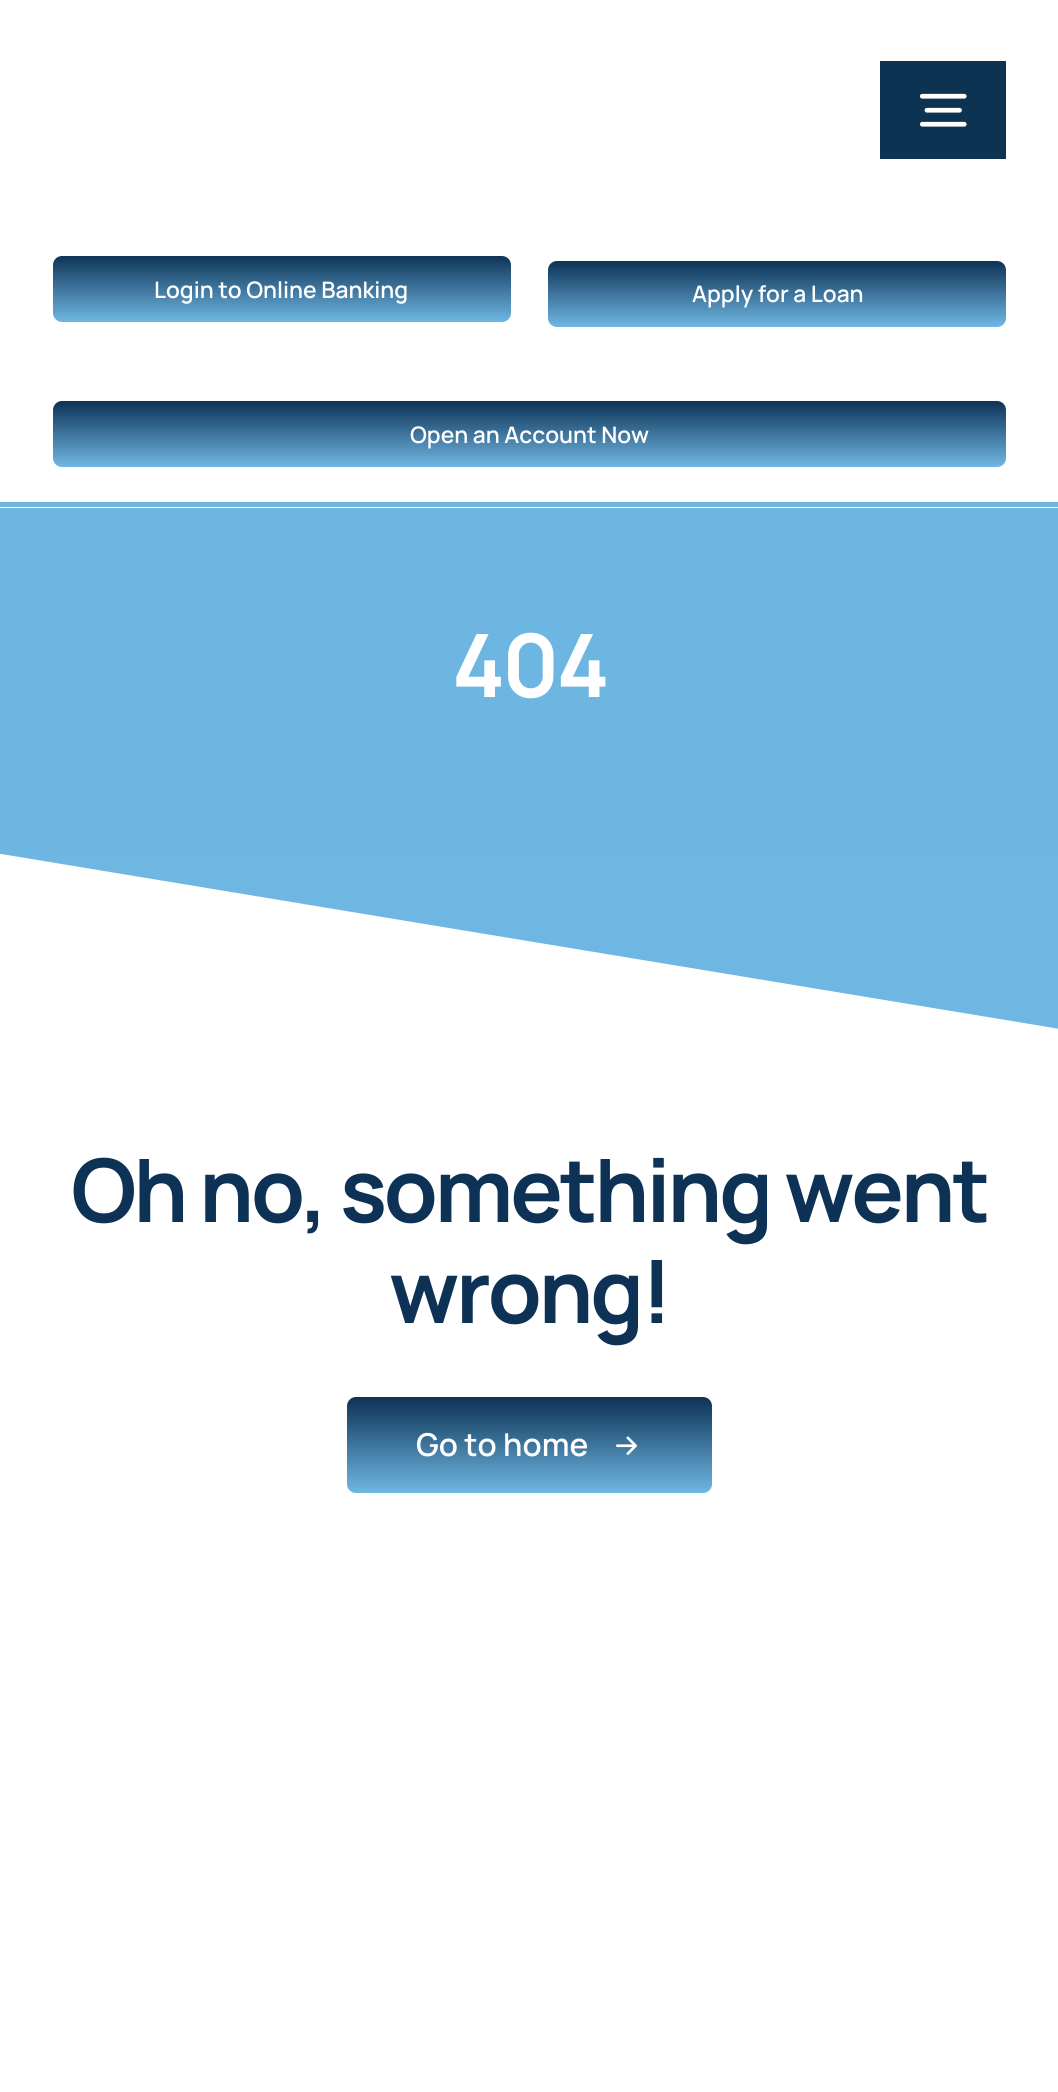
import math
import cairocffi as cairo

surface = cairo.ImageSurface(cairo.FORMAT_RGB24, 1058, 2092)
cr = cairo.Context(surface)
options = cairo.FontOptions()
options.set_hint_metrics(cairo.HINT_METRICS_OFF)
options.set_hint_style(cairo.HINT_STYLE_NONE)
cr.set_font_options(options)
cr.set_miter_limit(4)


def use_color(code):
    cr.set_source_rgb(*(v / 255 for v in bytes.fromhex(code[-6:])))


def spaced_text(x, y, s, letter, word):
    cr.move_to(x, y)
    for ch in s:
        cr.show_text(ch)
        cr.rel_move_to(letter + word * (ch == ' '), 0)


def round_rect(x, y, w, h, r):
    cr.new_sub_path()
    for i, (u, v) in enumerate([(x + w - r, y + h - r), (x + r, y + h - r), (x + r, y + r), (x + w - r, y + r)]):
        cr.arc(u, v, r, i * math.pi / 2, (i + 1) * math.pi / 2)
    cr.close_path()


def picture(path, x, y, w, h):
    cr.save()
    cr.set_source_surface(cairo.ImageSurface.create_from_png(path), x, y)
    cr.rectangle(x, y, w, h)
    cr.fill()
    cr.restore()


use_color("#ffffff")
cr.paint()
use_color("#0d3353")
cr.rectangle(880, 61, 126, 98)
cr.fill()
picture("img1.png", 919, 93, 48, 34)
gradient = cairo.LinearGradient(282, 255, 282, 322)
gradient.add_color_stop_rgba(0, 0.051, 0.196, 0.333, 1)
gradient.add_color_stop_rgba(1, 0.435, 0.718, 0.89, 1)
cr.set_source(gradient)
round_rect(53, 256, 458, 66, 9)
cr.fill()
cr.select_font_face("Manrope SemiBold")
cr.set_font_size(22.75)
use_color("#ffffff")
cr.move_to(154, 298)
cr.show_text("Login to Online Banking")
gradient = cairo.LinearGradient(777, 261, 777, 327)
gradient.add_color_stop_rgba(0, 0.051, 0.196, 0.333, 1)
gradient.add_color_stop_rgba(1, 0.435, 0.718, 0.89, 1)
cr.set_source(gradient)
round_rect(548, 261, 458, 66, 9)
cr.fill()
use_color("#ffffff")
cr.move_to(692, 302)
cr.show_text("Apply for a Loan")
gradient = cairo.LinearGradient(529, 401, 529, 467)
gradient.add_color_stop_rgba(0, 0.051, 0.196, 0.333, 1)
gradient.add_color_stop_rgba(1, 0.435, 0.718, 0.89, 1)
cr.set_source(gradient)
round_rect(53, 401, 953, 66, 9)
cr.fill()
use_color("#ffffff")
cr.move_to(410, 443)
cr.show_text("Open an Account Now")
use_color("#6cb6e1")
cr.rectangle(0, 508, 1058, 346)
cr.fill()
use_color("#6fb7dd")
cr.rectangle(0, 502, 1058, 5)
cr.fill()
cr.select_font_face("Manrope", cairo.FONT_SLANT_NORMAL, cairo.FONT_WEIGHT_BOLD)
cr.set_font_size(87.5)
use_color("#ffffff")
spaced_text(452, 697, "404", -3.15, 0)
use_color("#6fb7e3")
cr.new_path()
cr.move_to(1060, 854)
cr.line_to(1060, 1029)
cr.line_to(1, 854)
cr.close_path()
cr.fill()
use_color("#0d3255")
spaced_text(71, 1222, "Oh no, something went", -3.15, 0)
spaced_text(389, 1323, "wrong!", -3.15, 0)
gradient = cairo.LinearGradient(529, 1397, 529, 1493)
gradient.add_color_stop_rgba(0, 0.051, 0.196, 0.333, 1)
gradient.add_color_stop_rgba(1, 0.435, 0.718, 0.89, 1)
cr.set_source(gradient)
round_rect(347, 1397, 365, 96, 9)
cr.fill()
cr.select_font_face("Manrope SemiBold")
cr.set_font_size(31.5)
use_color("#ffffff")
cr.move_to(416, 1456)
cr.show_text("Go to home")
picture("img2.png", 616, 1436, 21, 19)
surface.write_to_png("result.png")
